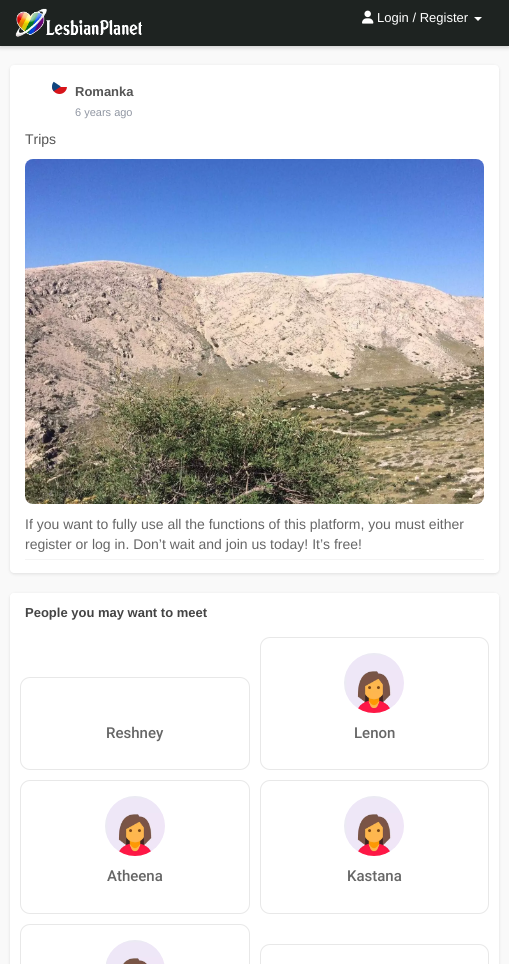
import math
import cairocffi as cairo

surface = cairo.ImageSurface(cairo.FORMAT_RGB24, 509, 964)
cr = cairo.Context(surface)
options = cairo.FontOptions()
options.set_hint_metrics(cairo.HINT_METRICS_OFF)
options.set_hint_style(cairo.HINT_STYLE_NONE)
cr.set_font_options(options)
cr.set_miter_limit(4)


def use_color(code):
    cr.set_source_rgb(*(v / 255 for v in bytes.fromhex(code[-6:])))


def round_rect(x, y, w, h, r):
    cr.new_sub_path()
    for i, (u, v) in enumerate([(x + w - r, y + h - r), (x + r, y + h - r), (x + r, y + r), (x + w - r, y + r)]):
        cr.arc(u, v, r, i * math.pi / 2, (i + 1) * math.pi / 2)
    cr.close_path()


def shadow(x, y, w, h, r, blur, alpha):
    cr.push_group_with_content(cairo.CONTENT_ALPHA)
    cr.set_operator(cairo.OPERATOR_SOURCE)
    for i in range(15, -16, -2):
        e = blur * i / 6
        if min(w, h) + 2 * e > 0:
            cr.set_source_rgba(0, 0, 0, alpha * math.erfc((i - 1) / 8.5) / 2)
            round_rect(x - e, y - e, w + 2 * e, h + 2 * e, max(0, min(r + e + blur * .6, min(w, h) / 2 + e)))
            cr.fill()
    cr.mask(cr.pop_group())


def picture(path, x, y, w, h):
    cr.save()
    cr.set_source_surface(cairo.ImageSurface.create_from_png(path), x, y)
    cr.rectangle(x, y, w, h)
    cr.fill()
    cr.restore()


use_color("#f9f9f9")
cr.paint()
use_color("#000000")
shadow(0, 2, 509, 46, 0, 2, 0.15)
use_color("#1e2321")
cr.rectangle(0, 0, 509, 46)
cr.fill()
picture("img1.png", 15, 8, 128, 29)
picture("img2.png", 362, 10, 12, 14)
cr.select_font_face("Liberation Sans")
cr.set_font_size(13)
use_color("#ffffff")
cr.move_to(377, 22)
cr.show_text("Login / Register")
cr.new_path()
cr.move_to(474, 17)
cr.line_to(482, 17)
cr.line_to(478, 21)
cr.close_path()
cr.fill()
use_color("#000000")
shadow(10, 66, 489, 508, 4, 1.5, 0.1)
use_color("#ffffff")
round_rect(10, 65, 489, 508, 4)
cr.fill()
picture("img3.png", 52, 81, 15, 13)
cr.select_font_face("Liberation Sans", cairo.FONT_SLANT_NORMAL, cairo.FONT_WEIGHT_BOLD)
use_color("#555555")
cr.move_to(75, 96)
cr.show_text("Romanka")
cr.select_font_face("Liberation Sans")
cr.set_font_size(11)
use_color("#9197a3")
cr.move_to(75, 116)
cr.show_text("6 years ago")
cr.set_font_size(14)
use_color("#555555")
cr.move_to(25, 144)
cr.show_text("Trips")
picture("img4.png", 25, 159, 459, 345)
use_color("#666666")
cr.move_to(25, 529)
cr.show_text("If you want to fully use all the functions of this platform, you must either")
cr.move_to(25, 549)
cr.show_text("register or log in. Don’t wait and join us today! It’s free!")
use_color("#f4f4f4")
cr.rectangle(25, 559, 459, 1)
cr.fill()
use_color("#000000")
shadow(10, 594, 489, 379, 4, 1.5, 0.1)
use_color("#ffffff")
round_rect(10, 593, 489, 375, 4)
cr.fill()
cr.new_path()
cr.move_to(14, 593)
cr.line_to(495, 593)
cr.curve_to(497, 593, 499, 595, 499, 597)
cr.line_to(499, 632)
cr.line_to(10, 632)
cr.line_to(10, 597)
cr.curve_to(10, 595, 12, 593, 14, 593)
cr.close_path()
cr.fill()
cr.select_font_face("Liberation Sans", cairo.FONT_SLANT_NORMAL, cairo.FONT_WEIGHT_BOLD)
cr.set_font_size(13)
use_color("#444444")
cr.move_to(25, 617)
cr.show_text("People you may want to meet")
round_rect(20.5, 677.5, 229, 92, 9.5)
use_color("#e8e8e8")
cr.set_line_width(1)
cr.stroke()
cr.select_font_face("Roboto Medium")
cr.set_font_size(15)
use_color("#666666")
cr.move_to(106, 738)
cr.show_text("Reshney")
round_rect(260.5, 637.5, 228, 132, 9.5)
use_color("#e8e8e8")
cr.stroke()
picture("img5.png", 344, 653, 60, 60)
use_color("#666666")
cr.move_to(354, 738)
cr.show_text("Lenon")
round_rect(20.5, 780.5, 229, 133, 9.5)
use_color("#e8e8e8")
cr.stroke()
picture("img6.png", 105, 796, 60, 60)
use_color("#666666")
cr.move_to(107, 881)
cr.show_text("Atheena")
round_rect(260.5, 780.5, 228, 133, 9.5)
use_color("#e8e8e8")
cr.stroke()
picture("img7.png", 344, 796, 60, 60)
use_color("#666666")
cr.move_to(347, 881)
cr.show_text("Kastana")
round_rect(20.5, 924.5, 229, 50, 9.5)
use_color("#e8e8e8")
cr.stroke()
picture("img8.png", 106, 940, 59, 24)
round_rect(260.5, 944.5, 228, 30, 9.5)
cr.stroke()
surface.write_to_png("result.png")
